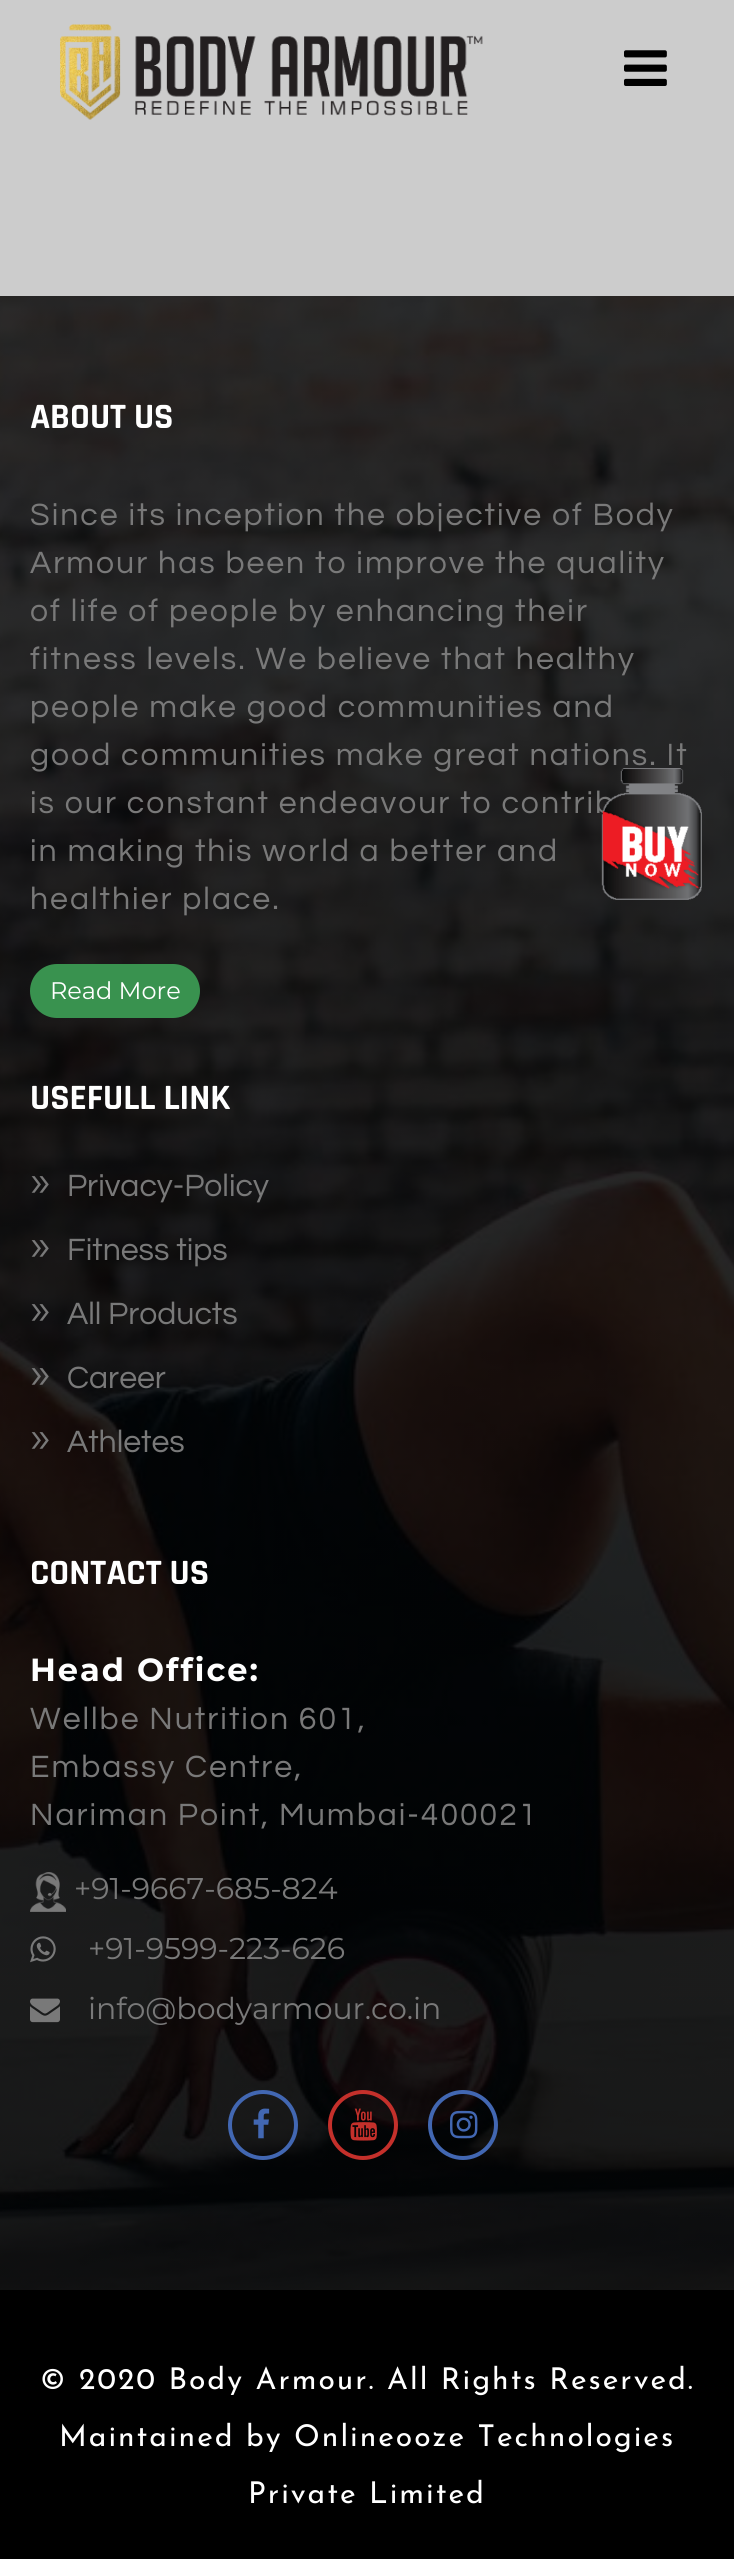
import math
import cairocffi as cairo

surface = cairo.ImageSurface(cairo.FORMAT_RGB24, 734, 2559)
cr = cairo.Context(surface)
options = cairo.FontOptions()
options.set_hint_metrics(cairo.HINT_METRICS_OFF)
options.set_hint_style(cairo.HINT_STYLE_NONE)
cr.set_font_options(options)
cr.set_miter_limit(4)


def use_color(code):
    cr.set_source_rgb(*(v / 255 for v in bytes.fromhex(code[-6:])))


def spaced_text(x, y, s, letter, word):
    cr.move_to(x, y)
    for ch in s:
        cr.show_text(ch)
        cr.rel_move_to(letter + word * (ch == ' '), 0)


def round_rect(x, y, w, h, r):
    cr.new_sub_path()
    for i, (u, v) in enumerate([(x + w - r, y + h - r), (x + r, y + h - r), (x + r, y + r), (x + w - r, y + r)]):
        cr.arc(u, v, r, i * math.pi / 2, (i + 1) * math.pi / 2)
    cr.close_path()


def picture(path, x, y, w, h):
    cr.save()
    cr.set_source_surface(cairo.ImageSurface.create_from_png(path), x, y)
    cr.rectangle(x, y, w, h)
    cr.fill()
    cr.restore()


use_color("#cccccc")
cr.paint()
picture("img1.png", 60, 24, 423, 96)
picture("img2.png", 624, 50, 43, 36)
picture("img3.png", 0, 296, 734, 1994)
cr.select_font_face("Rajdhani", cairo.FONT_SLANT_NORMAL, cairo.FONT_WEIGHT_BOLD)
cr.set_font_size(36)
use_color("#ffffff")
cr.move_to(30, 428)
cr.show_text("ABOUT US")
cr.select_font_face("Questrial")
cr.set_font_size(32)
use_color("#797979")
spaced_text(30, 525, "Since its inception the objective of Body", 2, 0)
spaced_text(30, 573, "Armour has been to improve the quality", 2, 0)
spaced_text(30, 621, "of life of people by enhancing their", 2, 0)
spaced_text(30, 669, "fitness levels. We believe that healthy", 2, 0)
spaced_text(30, 717, "people make good communities and", 2, 0)
spaced_text(30, 765, "good communities make great nations. It", 2, 0)
spaced_text(30, 813, "is our constant endeavour to contrib", 2, 0)
spaced_text(30, 861, "in making this world a better and", 2, 0)
spaced_text(30, 909, "healthier place.", 2, 0)
use_color("#39924f")
round_rect(30, 964, 170, 54, 27)
cr.fill()
cr.select_font_face("Montserrat")
cr.set_font_size(24)
use_color("#ffffff")
cr.move_to(50, 999)
cr.show_text("Read More")
cr.select_font_face("Rajdhani", cairo.FONT_SLANT_NORMAL, cairo.FONT_WEIGHT_BOLD)
cr.set_font_size(36)
cr.move_to(30, 1109)
cr.show_text("USEFULL LINK")
cr.select_font_face("Montserrat")
cr.set_font_size(44)
use_color("#797979")
cr.move_to(30, 1196)
cr.show_text("»")
cr.select_font_face("Questrial")
cr.set_font_size(32)
cr.move_to(67, 1196)
cr.show_text("Privacy-Policy")
cr.select_font_face("Montserrat")
cr.set_font_size(44)
cr.move_to(30, 1260)
cr.show_text("»")
cr.select_font_face("Questrial")
cr.set_font_size(32)
cr.move_to(67, 1260)
cr.show_text("Fitness tips")
cr.select_font_face("Montserrat")
cr.set_font_size(44)
cr.move_to(30, 1324)
cr.show_text("»")
cr.select_font_face("Questrial")
cr.set_font_size(32)
cr.move_to(67, 1324)
cr.show_text("All Products")
cr.select_font_face("Montserrat")
cr.set_font_size(44)
cr.move_to(30, 1388)
cr.show_text("»")
cr.select_font_face("Questrial")
cr.set_font_size(32)
cr.move_to(67, 1388)
cr.show_text("Career")
cr.select_font_face("Montserrat")
cr.set_font_size(44)
cr.move_to(30, 1452)
cr.show_text("»")
cr.select_font_face("Questrial")
cr.set_font_size(32)
cr.move_to(67, 1452)
cr.show_text("Athletes")
cr.select_font_face("Rajdhani", cairo.FONT_SLANT_NORMAL, cairo.FONT_WEIGHT_BOLD)
cr.set_font_size(36)
use_color("#ffffff")
cr.move_to(30, 1584)
cr.show_text("CONTACT US")
cr.select_font_face("Montserrat", cairo.FONT_SLANT_NORMAL, cairo.FONT_WEIGHT_BOLD)
cr.set_font_size(32)
spaced_text(30, 1681, "Head Office:", 2, 0)
cr.select_font_face("Questrial")
use_color("#797979")
spaced_text(30, 1729, "Wellbe Nutrition 601,", 2, 0)
spaced_text(30, 1777, "Embassy Centre,", 2, 0)
spaced_text(30, 1825, "Nariman Point, Mumbai-400021", 2, 0)
picture("img4.png", 30, 1872, 36, 40)
cr.select_font_face("Montserrat")
cr.set_font_size(30)
cr.move_to(74, 1899)
cr.show_text("+91-9667-685-824")
picture("img5.png", 30, 1936, 26, 27)
cr.move_to(88, 1959)
cr.show_text("+91-9599-223-626")
picture("img6.png", 30, 1998, 30, 25)
cr.move_to(88, 2019)
cr.show_text("info@bodyarmour.co.in")
cr.new_path()
cr.arc(263, 2125, 33, 0, 2 * math.pi)
use_color("#4267b2")
cr.set_line_width(4)
cr.stroke()
picture("img7.png", 253, 2108, 17, 31)
cr.arc(363, 2125, 33, 0, 2 * math.pi)
use_color("#c4302b")
cr.stroke()
picture("img8.png", 350, 2108, 27, 33)
cr.arc(463, 2125, 33, 0, 2 * math.pi)
use_color("#4267b2")
cr.stroke()
picture("img9.png", 450, 2110, 28, 29)
picture("img10.png", 601, 768, 101, 132)
use_color("#000000")
cr.rectangle(0, 2290, 734, 269)
cr.fill()
cr.select_font_face("Josefin Sans")
use_color("#ffffff")
spaced_text(40, 2389, "© 2020 Body Armour. All Rights Reserved.", 2, 0)
spaced_text(59, 2446, "Maintained by Onlineooze Technologies", 2, 0)
spaced_text(248, 2503, "Private Limited", 2, 0)
surface.write_to_png("result.png")
